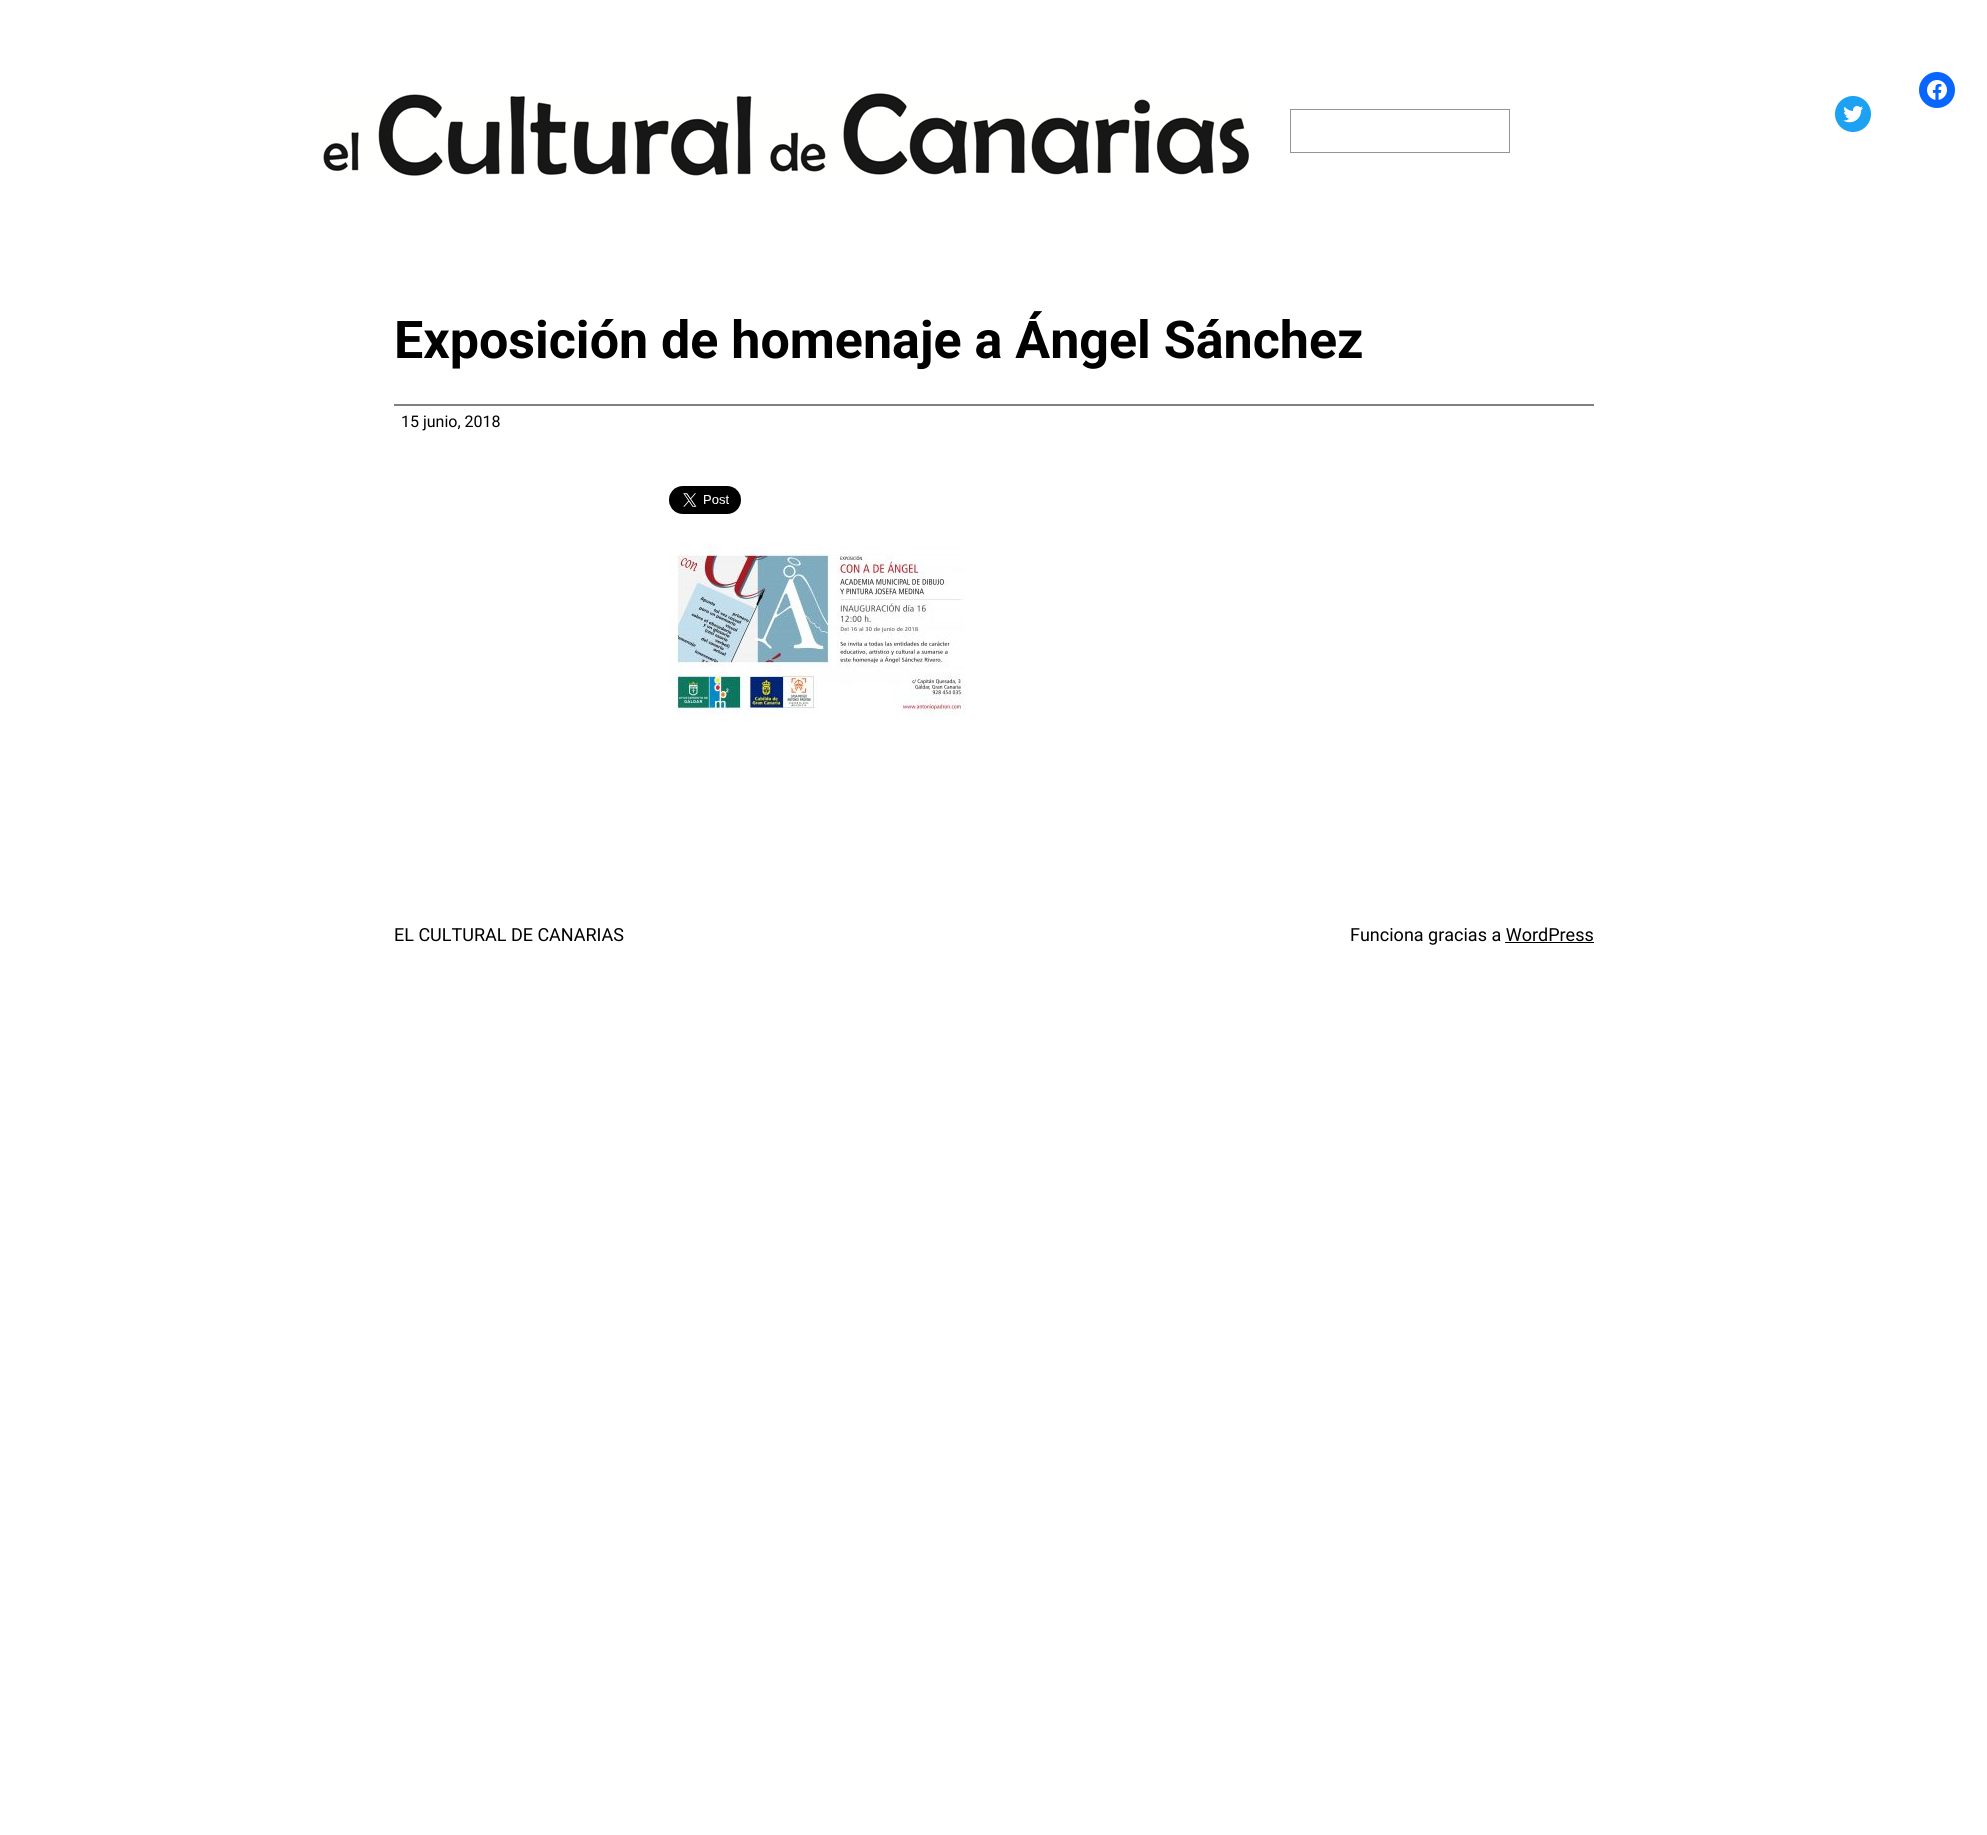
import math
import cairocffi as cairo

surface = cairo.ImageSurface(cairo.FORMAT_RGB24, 1987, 1835)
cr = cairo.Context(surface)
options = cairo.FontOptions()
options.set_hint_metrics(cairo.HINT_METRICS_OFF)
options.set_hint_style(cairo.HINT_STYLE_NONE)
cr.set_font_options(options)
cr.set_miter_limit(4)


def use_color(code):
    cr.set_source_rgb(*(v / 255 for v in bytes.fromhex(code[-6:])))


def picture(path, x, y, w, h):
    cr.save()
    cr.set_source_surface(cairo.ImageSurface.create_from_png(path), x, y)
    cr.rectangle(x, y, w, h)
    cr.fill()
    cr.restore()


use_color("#ffffff")
cr.paint()
picture("img1.png", 323, 93, 926, 83)
cr.rectangle(1290.5, 109.5, 219, 43)
use_color("#949494")
cr.set_line_width(1)
cr.stroke()
use_color("#1da1f2")
cr.arc(1853, 114, 18, 0, 2 * math.pi)
cr.fill()
picture("img2.png", 1843, 106, 20, 17)
use_color("#0866ff")
cr.arc(1937, 90, 18, 0, 2 * math.pi)
cr.fill()
picture("img3.png", 1927, 80, 20, 20)
cr.select_font_face("Roboto", cairo.FONT_SLANT_NORMAL, cairo.FONT_WEIGHT_BOLD)
cr.set_font_size(52)
use_color("#000000")
cr.move_to(394, 358)
cr.show_text("Exposición de homenaje a Ángel Sánchez")
use_color("#808080")
cr.rectangle(394, 404, 1200, 2)
cr.fill()
cr.select_font_face("Roboto")
cr.set_font_size(16)
use_color("#000000")
cr.move_to(401, 427)
cr.show_text("15 junio, 2018")
picture("img4.png", 669, 486, 72, 28)
picture("img5.png", 669, 547, 296, 170)
cr.set_font_size(18)
cr.move_to(394, 941)
cr.show_text("EL CULTURAL DE CANARIAS")
cr.move_to(1350, 941)
cr.show_text("Funciona gracias a WordPress")
cr.rectangle(1505, 942, 89, 1)
cr.fill()
surface.write_to_png("result.png")
